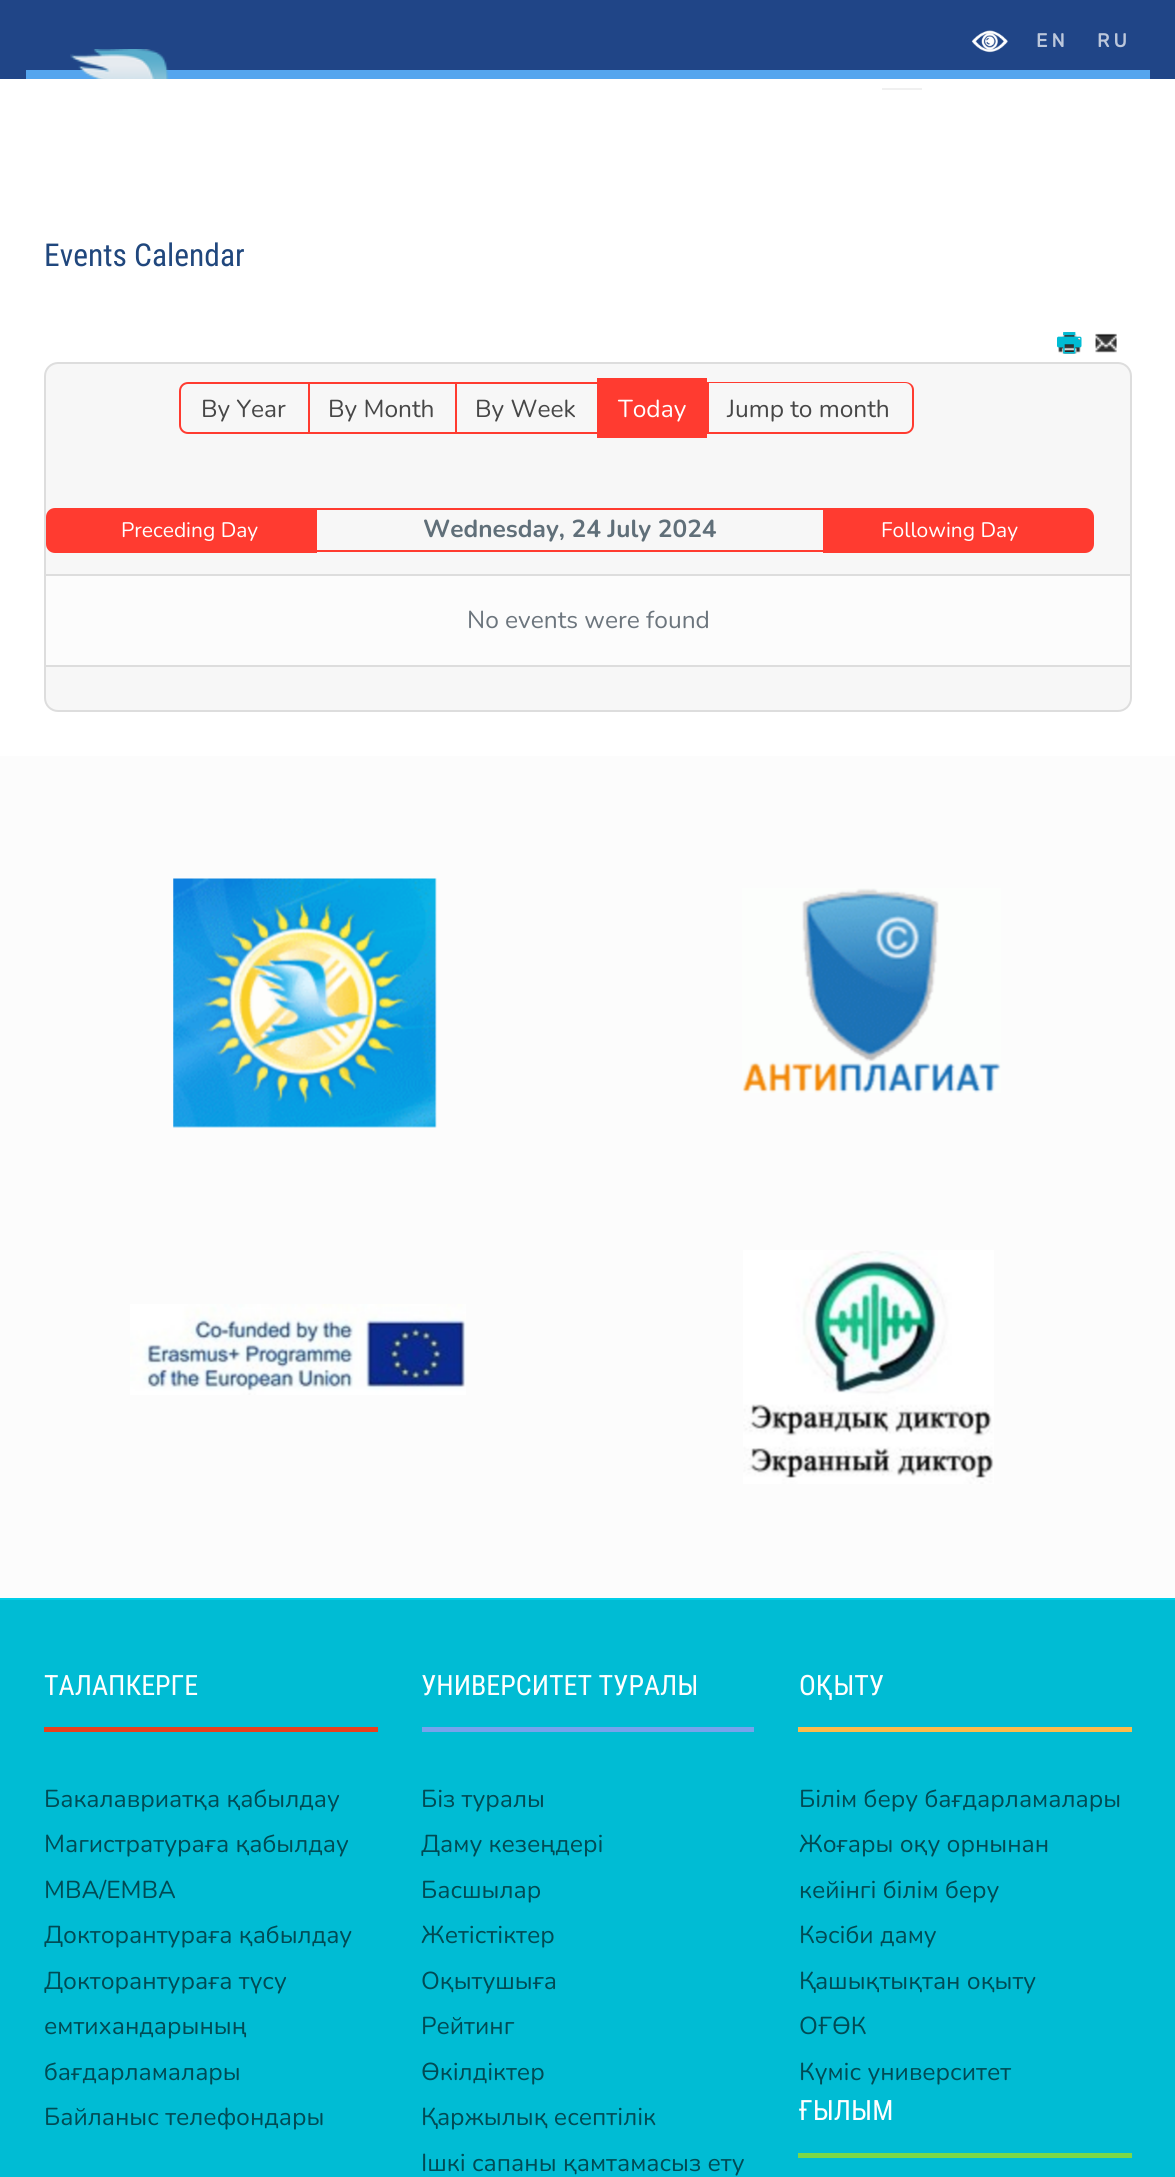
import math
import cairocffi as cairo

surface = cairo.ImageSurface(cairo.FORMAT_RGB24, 1175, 2177)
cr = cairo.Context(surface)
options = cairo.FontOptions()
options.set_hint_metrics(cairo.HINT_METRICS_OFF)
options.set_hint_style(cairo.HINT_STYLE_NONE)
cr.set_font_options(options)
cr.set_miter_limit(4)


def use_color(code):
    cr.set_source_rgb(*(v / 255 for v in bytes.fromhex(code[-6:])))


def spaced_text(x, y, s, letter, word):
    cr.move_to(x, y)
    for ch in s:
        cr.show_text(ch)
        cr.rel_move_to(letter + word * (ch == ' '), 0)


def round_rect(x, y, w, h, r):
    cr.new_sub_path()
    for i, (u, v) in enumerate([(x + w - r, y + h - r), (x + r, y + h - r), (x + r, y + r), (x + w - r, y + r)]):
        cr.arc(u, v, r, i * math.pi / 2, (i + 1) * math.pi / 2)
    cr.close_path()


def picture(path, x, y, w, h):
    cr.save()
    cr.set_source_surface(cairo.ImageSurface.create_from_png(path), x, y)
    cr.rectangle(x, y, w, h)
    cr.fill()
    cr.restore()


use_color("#204587")
cr.paint()
use_color("#ffffff")
cr.rectangle(0, 79, 1175, 677)
cr.fill()
use_color("#f0f0f0")
cr.rectangle(882, 88, 40, 2)
cr.fill()
picture("img1.png", 971, 30, 37, 23)
cr.select_font_face("Rubik", cairo.FONT_SLANT_NORMAL, cairo.FONT_WEIGHT_BOLD)
cr.set_font_size(19)
use_color("#bcc7db")
spaced_text(1036, 47, "EN", 4, 0)
spaced_text(1097, 47, "RU", 4, 0)
use_color("#54a5ee")
cr.rectangle(26, 70, 1124, 9)
cr.fill()
picture("img2.png", 70, 49, 99, 30)
cr.select_font_face("Roboto Condensed")
cr.set_font_size(31.5)
use_color("#20477d")
cr.move_to(44, 266)
cr.show_text("Events Calendar")
picture("img3.png", 1058, 332, 23, 22)
picture("img4.png", 1057, 332, 25, 22)
picture("img5.png", 1095, 333, 22, 20)
use_color("#f7f7f7")
round_rect(45, 363, 1086, 348, 13)
cr.fill_preserve()
use_color("#dddddd")
cr.stroke()
cr.new_path()
cr.move_to(188, 383)
cr.line_to(309, 383)
cr.line_to(309, 433)
cr.line_to(188, 433)
cr.curve_to(183.5, 433, 180, 429.5, 180, 425)
cr.line_to(180, 391)
cr.curve_to(180, 386.5, 183.5, 383, 188, 383)
cr.close_path()
use_color("#ff3b30")
cr.stroke()
cr.select_font_face("Nunito")
cr.set_font_size(24.5)
use_color("#474747")
cr.move_to(201, 417)
cr.show_text("By Year")
use_color("#ff3b30")
cr.rectangle(306, 382, 151, 2)
cr.fill()
cr.rectangle(455, 382, 2, 52)
cr.fill()
cr.rectangle(306, 432, 293, 2)
cr.fill()
use_color("#474747")
cr.move_to(328, 417)
cr.show_text("By Month")
use_color("#ff3b30")
cr.rectangle(455, 382, 144, 2)
cr.fill()
use_color("#474747")
cr.move_to(475, 417)
cr.show_text("By Week")
use_color("#ff3b30")
cr.rectangle(707, 382, 2, 52)
cr.fill()
cr.rectangle(597, 378, 110, 60)
cr.fill()
use_color("#ffffff")
cr.move_to(618, 417)
cr.show_text("Today")
use_color("#ff3b30")
cr.set_fill_rule(cairo.FILL_RULE_EVEN_ODD)
cr.new_path()
cr.move_to(707, 382)
cr.line_to(905, 382)
cr.curve_to(910, 382, 914, 385, 914, 390)
cr.line_to(914, 425)
cr.curve_to(914, 430, 910, 434, 905, 434)
cr.line_to(707, 434)
cr.close_path()
cr.move_to(707, 383)
cr.line_to(905, 383)
cr.curve_to(909, 383, 912, 386, 912, 390)
cr.line_to(912, 425)
cr.curve_to(912, 429, 909, 432, 905, 432)
cr.line_to(707, 432)
cr.close_path()
cr.fill()
use_color("#474747")
cr.move_to(727, 417)
cr.show_text("Jump to month")
use_color("#ff3b30")
cr.new_path()
cr.move_to(55, 509)
cr.line_to(316, 509)
cr.line_to(316, 552)
cr.line_to(55, 552)
cr.curve_to(50.5, 552, 47, 548.5, 47, 544)
cr.line_to(47, 517)
cr.curve_to(47, 512.5, 50.5, 509, 55, 509)
cr.close_path()
cr.fill_preserve()
cr.stroke()
cr.set_font_size(21)
use_color("#ffffff")
cr.move_to(121, 537)
cr.show_text("Preceding Day")
use_color("#ff3b30")
cr.rectangle(317, 508, 506, 2)
cr.fill()
cr.rectangle(317, 550, 506, 2)
cr.fill()
cr.select_font_face("Nunito", cairo.FONT_SLANT_NORMAL, cairo.FONT_WEIGHT_BOLD)
cr.set_font_size(24.5)
use_color("#606f79")
cr.move_to(423, 537)
cr.show_text("Wednesday, 24 July 2024")
use_color("#ff3b30")
cr.new_path()
cr.move_to(824, 509)
cr.line_to(1085, 509)
cr.curve_to(1089.5, 509, 1093, 512.5, 1093, 517)
cr.line_to(1093, 544)
cr.curve_to(1093, 548.5, 1089.5, 552, 1085, 552)
cr.line_to(824, 552)
cr.close_path()
cr.fill_preserve()
cr.stroke()
cr.select_font_face("Nunito")
cr.set_font_size(21)
use_color("#ffffff")
cr.move_to(881, 537)
cr.show_text("Following Day")
use_color("#fcfcfc")
cr.rectangle(45, 575, 1086, 91)
cr.fill_preserve()
use_color("#dddddd")
cr.stroke()
cr.set_font_size(24.5)
use_color("#6c757d")
cr.move_to(467, 628)
cr.show_text("No events were found")
use_color("#fcfcfc")
cr.rectangle(0, 756, 1175, 842)
cr.fill()
picture("img6.png", 173, 878, 264, 250)
picture("img7.png", 742, 888, 259, 205)
picture("img8.png", 130, 1304, 336, 91)
picture("img9.png", 743, 1250, 251, 234)
use_color("#00bcd4")
cr.rectangle(0, 1600, 1175, 577)
cr.fill()
use_color("#00cee8")
cr.rectangle(0, 1598, 1175, 2)
cr.fill()
use_color("#e93f1c")
cr.rectangle(44, 1727, 334, 5)
cr.fill()
cr.select_font_face("Roboto Condensed")
cr.set_font_size(28)
use_color("#ffffff")
cr.move_to(44, 1695)
cr.show_text("ТАЛАПКЕРГЕ")
cr.select_font_face("Nunito")
cr.set_font_size(24.5)
use_color("#004b55")
cr.move_to(44, 1807)
cr.show_text("Бакалавриатқа қабылдау")
cr.move_to(44, 1852)
cr.show_text("Магистратураға қабылдау")
cr.move_to(44, 1898)
cr.show_text("MBA/EMBA")
cr.move_to(44, 1943)
cr.show_text("Докторантураға қабылдау")
cr.move_to(44, 1989)
cr.show_text("Докторантураға түсу")
cr.move_to(44, 2034)
cr.show_text("емтихандарының")
cr.move_to(44, 2080)
cr.show_text("бағдарламалары")
cr.move_to(44, 2125)
cr.show_text("Байланыс телефондары")
use_color("#77a3ec")
cr.rectangle(422, 1727, 332, 5)
cr.fill()
cr.select_font_face("Roboto Condensed")
cr.set_font_size(28)
use_color("#ffffff")
cr.move_to(421, 1695)
cr.show_text("УНИВЕРСИТЕТ ТУРАЛЫ")
cr.select_font_face("Nunito")
cr.set_font_size(24.5)
use_color("#004b55")
cr.move_to(421, 1807)
cr.show_text("Біз туралы")
cr.move_to(421, 1852)
cr.show_text("Даму кезеңдері")
cr.move_to(421, 1898)
cr.show_text("Басшылар")
cr.move_to(421, 1943)
cr.show_text("Жетістіктер")
cr.move_to(421, 1989)
cr.show_text("Оқытушыға")
cr.move_to(421, 2034)
cr.show_text("Рейтинг")
cr.move_to(421, 2080)
cr.show_text("Өкілдіктер")
cr.move_to(421, 2125)
cr.show_text("Қаржылық есептілік")
cr.move_to(421, 2171)
cr.show_text("Ішкі сапаны қамтамасыз ету")
use_color("#febb4a")
cr.rectangle(798, 1727, 334, 5)
cr.fill()
cr.select_font_face("Roboto Condensed")
cr.set_font_size(28)
use_color("#ffffff")
cr.move_to(799, 1695)
cr.show_text("ОҚЫТУ")
cr.select_font_face("Nunito")
cr.set_font_size(24.5)
use_color("#004b55")
cr.move_to(799, 1807)
cr.show_text("Білім беру бағдарламалары")
cr.move_to(799, 1852)
cr.show_text("Жоғары оқу орнынан")
cr.move_to(799, 1898)
cr.show_text("кейінгі білім беру")
cr.move_to(799, 1943)
cr.show_text("Кәсіби даму")
cr.move_to(799, 1989)
cr.show_text("Қашықтықтан оқыту")
cr.move_to(799, 2034)
cr.show_text("ОҒӨК")
cr.move_to(799, 2080)
cr.show_text("Күміс университет")
use_color("#7cd847")
cr.rectangle(798, 2153, 334, 5)
cr.fill()
cr.select_font_face("Roboto Condensed")
cr.set_font_size(28)
use_color("#ffffff")
cr.move_to(799, 2120)
cr.show_text("ҒЫЛЫМ")
surface.write_to_png("result.png")
